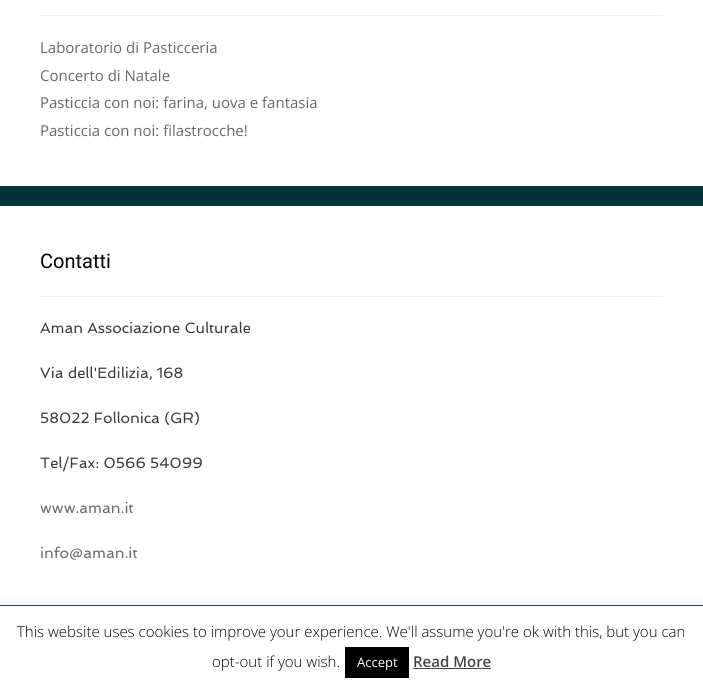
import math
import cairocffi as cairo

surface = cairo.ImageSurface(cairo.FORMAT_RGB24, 703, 690)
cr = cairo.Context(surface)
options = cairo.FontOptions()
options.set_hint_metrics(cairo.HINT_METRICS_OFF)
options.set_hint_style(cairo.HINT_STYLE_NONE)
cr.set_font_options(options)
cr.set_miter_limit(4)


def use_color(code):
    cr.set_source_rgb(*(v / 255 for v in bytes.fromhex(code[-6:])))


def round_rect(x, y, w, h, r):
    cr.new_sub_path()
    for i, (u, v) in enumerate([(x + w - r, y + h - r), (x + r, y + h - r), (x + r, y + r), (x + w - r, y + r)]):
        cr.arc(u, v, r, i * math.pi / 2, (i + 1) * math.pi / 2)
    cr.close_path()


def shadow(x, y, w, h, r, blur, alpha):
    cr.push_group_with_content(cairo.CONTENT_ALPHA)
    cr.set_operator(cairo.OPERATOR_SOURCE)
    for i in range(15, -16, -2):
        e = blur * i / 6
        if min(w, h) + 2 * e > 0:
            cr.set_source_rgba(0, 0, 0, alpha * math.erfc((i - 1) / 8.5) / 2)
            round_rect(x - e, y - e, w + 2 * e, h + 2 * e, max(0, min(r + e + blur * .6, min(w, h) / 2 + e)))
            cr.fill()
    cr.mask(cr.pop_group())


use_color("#01333a")
cr.paint()
use_color("#ffffff")
cr.rectangle(0, 0, 703, 186)
cr.fill()
use_color("#efefef")
cr.rectangle(40, 15, 623, 1)
cr.fill()
cr.select_font_face("Open Sans")
cr.set_font_size(15)
use_color("#686868")
cr.move_to(40, 53)
cr.show_text("Laboratorio di Pasticceria")
cr.move_to(40, 81)
cr.show_text("Concerto di Natale")
cr.move_to(40, 108)
cr.show_text("Pasticcia con noi: farina, uova e fantasia")
cr.move_to(40, 136)
cr.show_text("Pasticcia con noi: filastrocche!")
use_color("#ffffff")
cr.rectangle(0, 206, 703, 399)
cr.fill()
use_color("#efefef")
cr.rectangle(40, 296, 623, 1)
cr.fill()
cr.select_font_face("Roboto")
cr.set_font_size(20)
use_color("#000000")
cr.move_to(40, 268)
cr.show_text("Contatti")
cr.select_font_face("Spinnaker")
cr.set_font_size(15)
use_color("#3a3a3a")
cr.move_to(40, 333)
cr.show_text("Aman Associazione Culturale")
cr.move_to(40, 378)
cr.show_text("Via dell'Edilizia, 168")
cr.move_to(40, 423)
cr.show_text("58022 Follonica (GR)")
cr.move_to(40, 468)
cr.show_text("Tel/Fax: 0566 54099")
use_color("#686868")
cr.move_to(40, 513)
cr.show_text("www.aman.it")
cr.move_to(40, 558)
cr.show_text("info@aman.it")
use_color("#acabab")
shadow(0, 605, 703, 84, 0, 5, 0.3)
use_color("#ffffff")
cr.rectangle(0, 606, 703, 84)
cr.fill()
cr.select_font_face("Open Sans Light")
use_color("#000000")
cr.move_to(17, 637)
cr.show_text("This website uses cookies to improve your experience. We'll assume you're ok with this, but you can")
cr.move_to(212, 667)
cr.show_text("opt-out if you wish.")
cr.rectangle(345, 647, 64, 31)
cr.fill()
cr.select_font_face("Open Sans")
cr.set_font_size(13)
use_color("#ffffff")
cr.move_to(357, 667)
cr.show_text("Accept")
cr.select_font_face("Open Sans SemiBold")
cr.set_font_size(15)
use_color("#444444")
cr.move_to(413, 667)
cr.show_text("Read More")
cr.rectangle(413, 668, 78, 1)
cr.fill()
surface.write_to_png("result.png")
